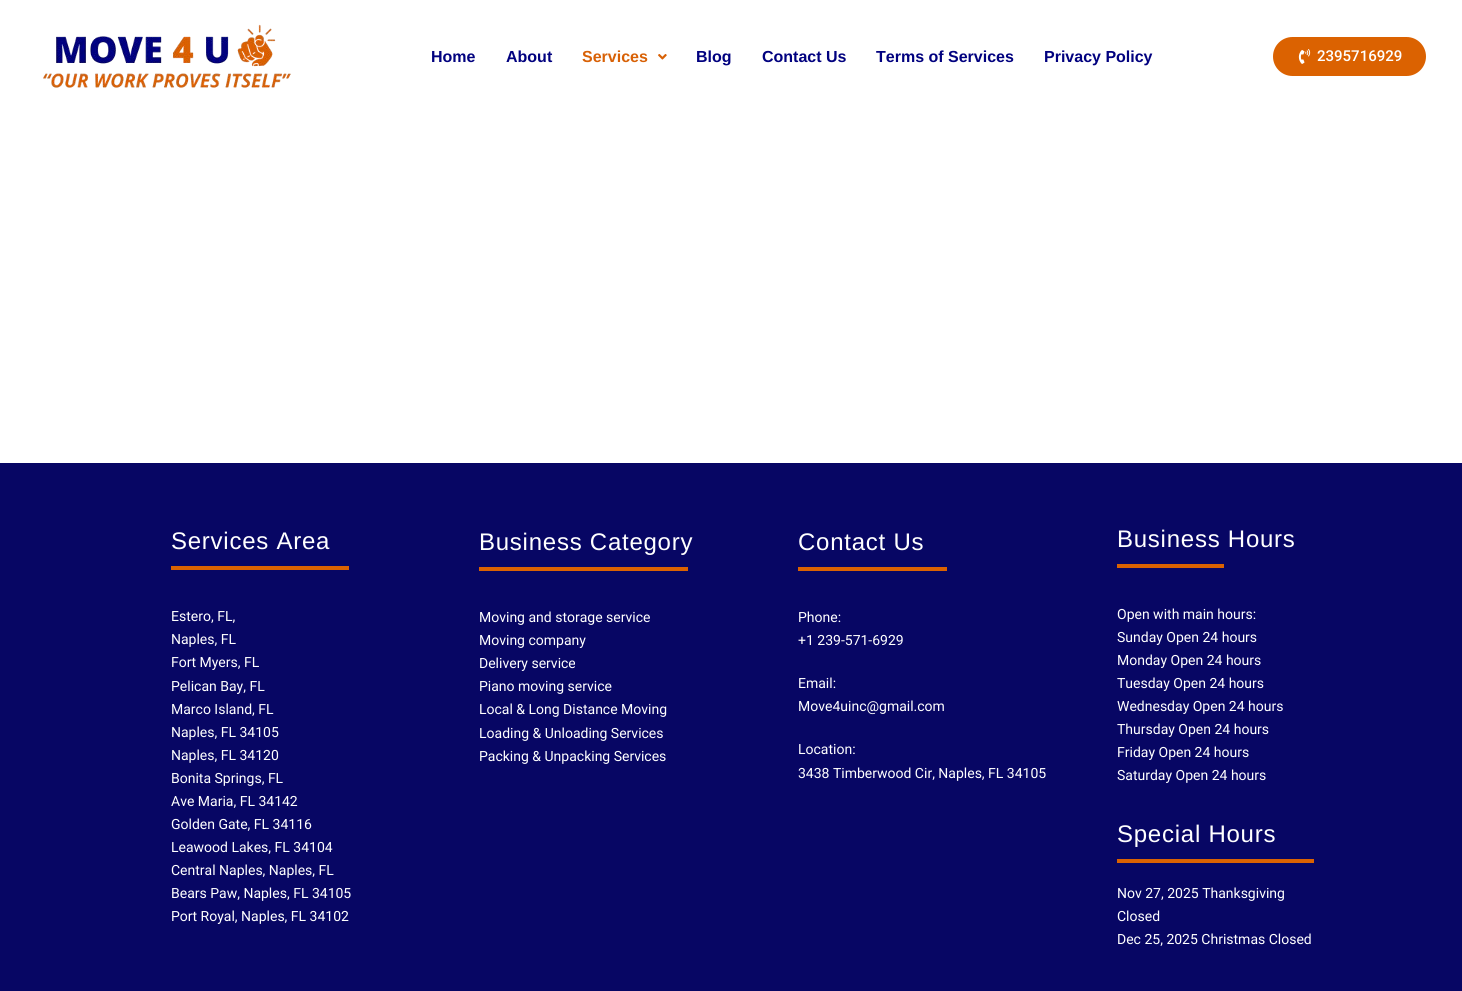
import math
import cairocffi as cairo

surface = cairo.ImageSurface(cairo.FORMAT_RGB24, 1462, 991)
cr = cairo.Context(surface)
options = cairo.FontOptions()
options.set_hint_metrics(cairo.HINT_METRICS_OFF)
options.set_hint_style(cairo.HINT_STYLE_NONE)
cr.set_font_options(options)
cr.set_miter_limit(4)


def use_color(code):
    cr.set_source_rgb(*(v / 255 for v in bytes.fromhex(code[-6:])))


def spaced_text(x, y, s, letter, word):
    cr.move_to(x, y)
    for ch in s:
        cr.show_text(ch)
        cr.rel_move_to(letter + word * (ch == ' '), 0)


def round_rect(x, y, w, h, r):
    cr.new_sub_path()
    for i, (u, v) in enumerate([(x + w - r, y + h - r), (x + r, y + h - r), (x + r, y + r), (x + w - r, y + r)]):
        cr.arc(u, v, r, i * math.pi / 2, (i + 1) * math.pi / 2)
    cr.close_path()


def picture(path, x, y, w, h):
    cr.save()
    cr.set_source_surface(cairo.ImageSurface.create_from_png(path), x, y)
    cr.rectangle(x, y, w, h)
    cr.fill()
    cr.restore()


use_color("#ffffff")
cr.paint()
picture("img1.png", 43, 24, 248, 64)
cr.select_font_face("Liberation Sans", cairo.FONT_SLANT_NORMAL, cairo.FONT_WEIGHT_BOLD)
cr.set_font_size(16)
use_color("#01017f")
cr.move_to(431, 62)
cr.show_text("Home")
cr.move_to(506, 62)
cr.show_text("About")
use_color("#d86106")
cr.move_to(582, 62)
cr.show_text("Services")
picture("img2.png", 658, 54, 9, 6)
use_color("#01017f")
cr.move_to(696, 62)
cr.show_text("Blog")
cr.move_to(762, 62)
cr.show_text("Contact Us")
cr.move_to(876, 62)
cr.show_text("Terms of Services")
cr.move_to(1044, 62)
cr.show_text("Privacy Policy")
use_color("#db6201")
round_rect(1273, 37, 153, 39, 19.5)
cr.fill()
picture("img3.png", 1298, 49, 13, 15)
cr.select_font_face("Roboto Medium")
cr.set_font_size(15)
use_color("#ffffff")
cr.move_to(1317, 61)
cr.show_text("2395716929")
use_color("#070664")
cr.rectangle(0, 463, 1462, 528)
cr.fill()
cr.select_font_face("Liberation Sans")
cr.set_font_size(24)
use_color("#ffffff")
spaced_text(171, 549, "Services Area", 0.75, 0)
use_color("#db6201")
cr.rectangle(171, 566, 178, 4)
cr.fill()
cr.select_font_face("Roboto")
cr.set_font_size(14)
use_color("#ffffff")
cr.move_to(171, 621)
cr.show_text("Estero, FL,")
cr.move_to(171, 644)
cr.show_text("Naples, FL")
cr.move_to(171, 667)
cr.show_text("Fort Myers, FL")
cr.move_to(171, 691)
cr.show_text("Pelican Bay, FL")
cr.move_to(171, 714)
cr.show_text("Marco Island, FL")
cr.move_to(171, 737)
cr.show_text("Naples, FL 34105")
cr.move_to(171, 760)
cr.show_text("Naples, FL 34120")
cr.move_to(171, 783)
cr.show_text("Bonita Springs, FL")
cr.move_to(171, 806)
cr.show_text("Ave Maria, FL 34142")
cr.move_to(171, 829)
cr.show_text("Golden Gate, FL 34116")
cr.move_to(171, 852)
cr.show_text("Leawood Lakes, FL 34104")
cr.move_to(171, 875)
cr.show_text("Central Naples, Naples, FL")
cr.move_to(171, 898)
cr.show_text("Bears Paw, Naples, FL 34105")
cr.move_to(171, 921)
cr.show_text("Port Royal, Naples, FL 34102")
cr.select_font_face("Liberation Sans")
cr.set_font_size(24)
spaced_text(479, 550, "Business Category", 0.75, 0)
use_color("#db6201")
cr.rectangle(479, 567, 209, 4)
cr.fill()
cr.select_font_face("Roboto")
cr.set_font_size(14)
use_color("#ffffff")
cr.move_to(479, 622)
cr.show_text("Moving and storage service")
cr.move_to(479, 645)
cr.show_text("Moving company")
cr.move_to(479, 668)
cr.show_text("Delivery service")
cr.move_to(479, 691)
cr.show_text("Piano moving service")
cr.move_to(479, 714)
cr.show_text("Local & Long Distance Moving")
cr.move_to(479, 738)
cr.show_text("Loading & Unloading Services")
cr.move_to(479, 761)
cr.show_text("Packing & Unpacking Services")
cr.select_font_face("Liberation Sans")
cr.set_font_size(24)
spaced_text(798, 550, "Contact Us", 0.75, 0)
use_color("#db6201")
cr.rectangle(798, 567, 149, 4)
cr.fill()
cr.select_font_face("Roboto")
cr.set_font_size(14)
use_color("#ffffff")
cr.move_to(798, 622)
cr.show_text("Phone:")
cr.move_to(798, 645)
cr.show_text("+1 239-571-6929")
cr.move_to(798, 688)
cr.show_text("Email:")
cr.move_to(798, 711)
cr.show_text("Move4uinc@gmail.com")
cr.move_to(798, 754)
cr.show_text("Location:")
cr.move_to(798, 778)
cr.show_text("3438 Timberwood Cir, Naples, FL 34105")
cr.select_font_face("Liberation Sans")
cr.set_font_size(24)
spaced_text(1117, 547, "Business Hours", 0.75, 0)
use_color("#db6201")
cr.rectangle(1117, 564, 107, 4)
cr.fill()
cr.select_font_face("Roboto")
cr.set_font_size(14)
use_color("#ffffff")
cr.move_to(1117, 619)
cr.show_text("Open with main hours:")
cr.move_to(1117, 642)
cr.show_text("Sunday Open 24 hours")
cr.move_to(1117, 665)
cr.show_text("Monday Open 24 hours")
cr.move_to(1117, 688)
cr.show_text("Tuesday Open 24 hours")
cr.move_to(1117, 711)
cr.show_text("Wednesday Open 24 hours")
cr.move_to(1117, 734)
cr.show_text("Thursday Open 24 hours")
cr.move_to(1117, 757)
cr.show_text("Friday Open 24 hours")
cr.move_to(1117, 780)
cr.show_text("Saturday Open 24 hours")
cr.select_font_face("Liberation Sans")
cr.set_font_size(24)
spaced_text(1117, 842, "Special Hours", 0.75, 0)
use_color("#db6201")
cr.rectangle(1117, 859, 197, 4)
cr.fill()
cr.select_font_face("Roboto")
cr.set_font_size(14)
use_color("#ffffff")
cr.move_to(1117, 898)
cr.show_text("Nov 27, 2025 Thanksgiving")
cr.move_to(1117, 921)
cr.show_text("Closed")
cr.move_to(1117, 944)
cr.show_text("Dec 25, 2025 Christmas Closed")
surface.write_to_png("result.png")
